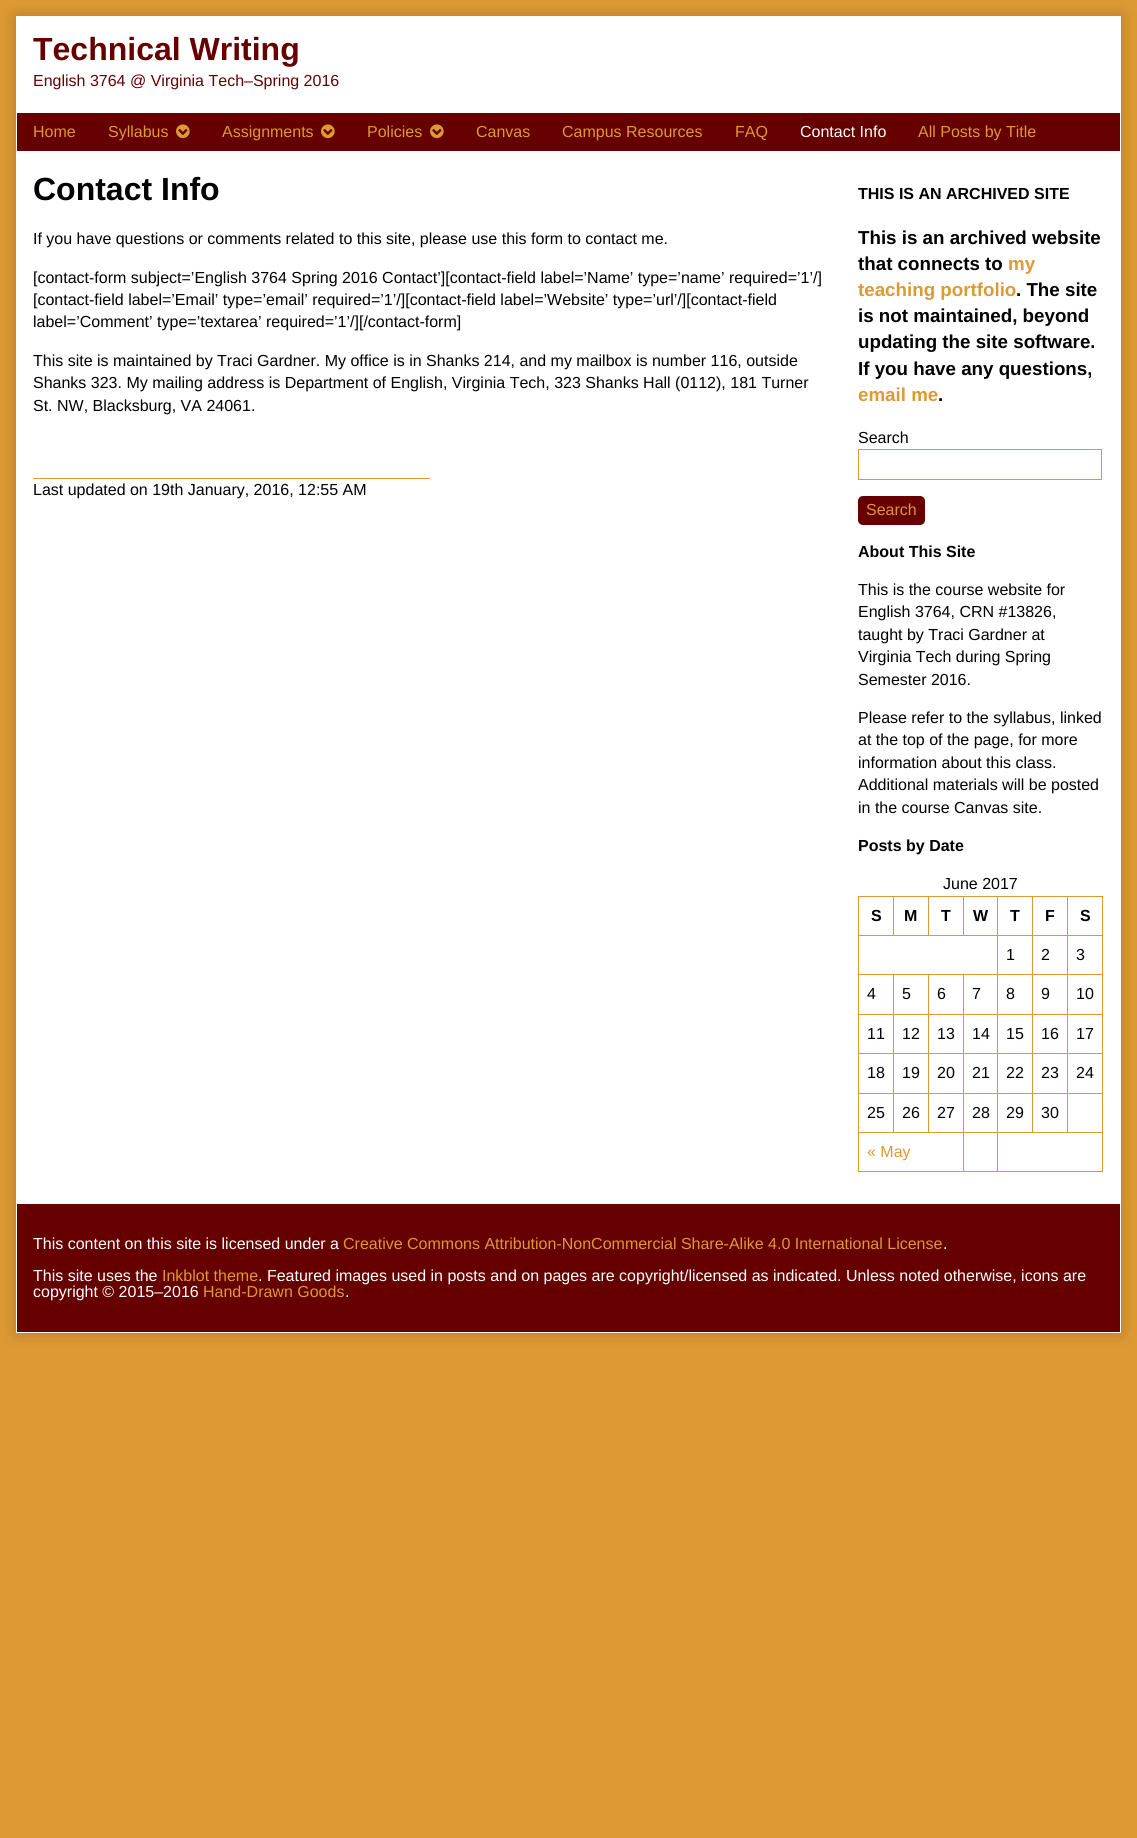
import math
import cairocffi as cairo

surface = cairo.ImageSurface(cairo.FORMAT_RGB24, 1137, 1838)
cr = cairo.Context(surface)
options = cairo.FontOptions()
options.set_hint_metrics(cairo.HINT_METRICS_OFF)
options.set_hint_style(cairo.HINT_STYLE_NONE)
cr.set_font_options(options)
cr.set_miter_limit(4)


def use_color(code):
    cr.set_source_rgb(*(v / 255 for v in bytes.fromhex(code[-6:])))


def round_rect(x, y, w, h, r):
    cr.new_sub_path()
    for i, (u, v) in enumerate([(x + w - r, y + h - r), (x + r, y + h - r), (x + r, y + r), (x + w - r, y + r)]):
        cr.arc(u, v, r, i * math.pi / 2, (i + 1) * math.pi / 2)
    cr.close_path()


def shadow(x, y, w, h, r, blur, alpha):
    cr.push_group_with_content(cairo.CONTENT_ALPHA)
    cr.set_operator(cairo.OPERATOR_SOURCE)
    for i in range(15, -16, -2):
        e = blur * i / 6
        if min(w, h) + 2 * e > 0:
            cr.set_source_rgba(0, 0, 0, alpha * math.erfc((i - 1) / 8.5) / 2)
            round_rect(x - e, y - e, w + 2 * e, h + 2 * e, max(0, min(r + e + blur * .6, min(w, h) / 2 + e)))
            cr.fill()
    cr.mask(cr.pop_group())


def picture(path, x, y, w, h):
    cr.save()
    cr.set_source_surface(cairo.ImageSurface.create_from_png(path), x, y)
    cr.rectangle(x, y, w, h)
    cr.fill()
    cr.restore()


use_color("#dd9933")
cr.paint()
use_color("#000000")
shadow(16, 16, 1105, 1317, 0, 8, 0.2)
use_color("#ffffff")
cr.rectangle(16, 16, 1105, 1317)
cr.fill()
cr.select_font_face("Liberation Sans", cairo.FONT_SLANT_NORMAL, cairo.FONT_WEIGHT_BOLD)
cr.set_font_size(32)
use_color("#660000")
cr.move_to(33, 60)
cr.show_text("Technical Writing")
cr.select_font_face("Liberation Sans")
cr.set_font_size(16)
cr.move_to(33, 86)
cr.show_text("English 3764 @ Virginia Tech–Spring 2016")
cr.rectangle(17, 113, 1103, 38)
cr.fill()
use_color("#dd9933")
cr.move_to(33, 137)
cr.show_text("Home")
cr.move_to(108, 137)
cr.show_text("Syllabus")
picture("img1.png", 176, 124, 14, 15)
cr.move_to(222, 137)
cr.show_text("Assignments")
picture("img1.png", 321, 124, 14, 15)
cr.move_to(367, 137)
cr.show_text("Policies")
picture("img1.png", 430, 124, 14, 15)
cr.move_to(476, 137)
cr.show_text("Canvas")
cr.move_to(562, 137)
cr.show_text("Campus Resources")
cr.move_to(735, 137)
cr.show_text("FAQ")
use_color("#ffffff")
cr.move_to(800, 137)
cr.show_text("Contact Info")
use_color("#dd9933")
cr.move_to(918, 137)
cr.show_text("All Posts by Title")
cr.select_font_face("Liberation Sans", cairo.FONT_SLANT_NORMAL, cairo.FONT_WEIGHT_BOLD)
cr.set_font_size(32)
use_color("#000000")
cr.move_to(33, 200)
cr.show_text("Contact Info")
cr.select_font_face("Liberation Sans")
cr.set_font_size(16)
cr.move_to(33, 244)
cr.show_text("If you have questions or comments related to this site, please use this form to contact me.")
cr.move_to(33, 283)
cr.show_text("[contact-form subject=’English 3764 Spring 2016 Contact’][contact-field label=’Name’ type=’name’ required=’1’/]")
cr.move_to(33, 305)
cr.show_text("[contact-field label=’Email’ type=’email’ required=’1’/][contact-field label=’Website’ type=’url’/][contact-field")
cr.move_to(33, 327)
cr.show_text("label=’Comment’ type=’textarea’ required=’1’/][/contact-form]")
cr.move_to(33, 366)
cr.show_text("This site is maintained by Traci Gardner. My office is in Shanks 214, and my mailbox is number 116, outside")
cr.move_to(33, 388)
cr.show_text("Shanks 323. My mailing address is Department of English, Virginia Tech, 323 Shanks Hall (0112), 181 Turner")
cr.move_to(33, 411)
cr.show_text("St. NW, Blacksburg, VA 24061.")
use_color("#dd9933")
cr.rectangle(33, 478, 397, 1)
cr.fill()
use_color("#000000")
cr.move_to(33, 495)
cr.show_text("Last updated on 19th January, 2016, 12:55 AM")
cr.select_font_face("Liberation Sans", cairo.FONT_SLANT_NORMAL, cairo.FONT_WEIGHT_BOLD)
cr.move_to(858, 199)
cr.show_text("THIS IS AN ARCHIVED SITE")
cr.set_font_size(18.75)
cr.move_to(858, 244)
cr.show_text("This is an archived website")
cr.move_to(858, 270)
cr.show_text("that connects to")
use_color("#dd9933")
cr.move_to(1008, 270)
cr.show_text("my")
cr.move_to(858, 296)
cr.show_text("teaching portfolio")
use_color("#000000")
cr.move_to(1016, 296)
cr.show_text(". The site")
cr.move_to(858, 322)
cr.show_text("is not maintained, beyond")
cr.move_to(858, 348)
cr.show_text("updating the site software.")
cr.move_to(858, 375)
cr.show_text("If you have any questions,")
use_color("#dd9933")
cr.move_to(858, 401)
cr.show_text("email me")
use_color("#000000")
cr.move_to(938, 401)
cr.show_text(".")
cr.select_font_face("Liberation Sans")
cr.set_font_size(16)
cr.move_to(858, 443)
cr.show_text("Search")
cr.rectangle(858.5, 449.5, 243, 30)
use_color("#dd9933")
cr.set_line_width(1)
cr.stroke()
use_color("#660000")
round_rect(858, 496, 67, 29, 5)
cr.fill()
use_color("#dd9933")
cr.move_to(866, 515)
cr.show_text("Search")
cr.select_font_face("Liberation Sans", cairo.FONT_SLANT_NORMAL, cairo.FONT_WEIGHT_BOLD)
use_color("#000000")
cr.move_to(858, 557)
cr.show_text("About This Site")
cr.select_font_face("Liberation Sans")
cr.move_to(858, 595)
cr.show_text("This is the course website for")
cr.move_to(858, 617)
cr.show_text("English 3764, CRN #13826,")
cr.move_to(858, 640)
cr.show_text("taught by Traci Gardner at")
cr.move_to(858, 662)
cr.show_text("Virginia Tech during Spring")
cr.move_to(858, 685)
cr.show_text("Semester 2016.")
cr.move_to(858, 723)
cr.show_text("Please refer to the syllabus, linked")
cr.move_to(858, 745)
cr.show_text("at the top of the page, for more")
cr.move_to(858, 768)
cr.show_text("information about this class.")
cr.move_to(858, 790)
cr.show_text("Additional materials will be posted")
cr.move_to(858, 813)
cr.show_text("in the course Canvas site.")
cr.select_font_face("Liberation Sans", cairo.FONT_SLANT_NORMAL, cairo.FONT_WEIGHT_BOLD)
cr.move_to(858, 851)
cr.show_text("Posts by Date")
cr.select_font_face("Liberation Sans")
cr.move_to(943, 889)
cr.show_text("June 2017")
use_color("#dd9933")
cr.rectangle(1067, 896, 36, 1)
cr.fill()
cr.rectangle(1067, 935, 36, 1)
cr.fill()
cr.rectangle(1067, 974, 36, 1)
cr.fill()
cr.rectangle(1067, 1014, 36, 1)
cr.fill()
cr.rectangle(1067, 1053, 36, 1)
cr.fill()
cr.rectangle(1067, 1093, 36, 1)
cr.fill()
cr.rectangle(1102, 1093, 1, 40)
cr.fill()
cr.rectangle(1067, 1132, 36, 1)
cr.fill()
cr.rectangle(1067, 1093, 1, 40)
cr.fill()
cr.rectangle(1032, 1093, 36, 1)
cr.fill()
cr.rectangle(1067, 1053, 1, 41)
cr.fill()
cr.rectangle(1032, 1053, 36, 1)
cr.fill()
cr.rectangle(1067, 1014, 1, 40)
cr.fill()
cr.rectangle(1032, 1014, 36, 1)
cr.fill()
cr.rectangle(1067, 974, 1, 41)
cr.fill()
cr.rectangle(1032, 974, 36, 1)
cr.fill()
cr.rectangle(1067, 935, 1, 40)
cr.fill()
cr.rectangle(1032, 935, 36, 1)
cr.fill()
cr.rectangle(1067, 896, 1, 40)
cr.fill()
cr.rectangle(1032, 896, 36, 1)
cr.fill()
cr.rectangle(1032, 1132, 36, 1)
cr.fill()
cr.rectangle(1032, 1093, 1, 40)
cr.fill()
cr.rectangle(997, 1093, 36, 1)
cr.fill()
cr.rectangle(1032, 1053, 1, 41)
cr.fill()
cr.rectangle(997, 1053, 36, 1)
cr.fill()
cr.rectangle(1032, 1014, 1, 40)
cr.fill()
cr.rectangle(997, 1014, 36, 1)
cr.fill()
cr.rectangle(1032, 974, 1, 41)
cr.fill()
cr.rectangle(997, 974, 36, 1)
cr.fill()
cr.rectangle(1032, 935, 1, 40)
cr.fill()
cr.rectangle(997, 935, 36, 1)
cr.fill()
cr.rectangle(1032, 896, 1, 40)
cr.fill()
cr.rectangle(997, 896, 36, 1)
cr.fill()
cr.rectangle(997, 1132, 36, 1)
cr.fill()
cr.rectangle(997, 1093, 1, 40)
cr.fill()
cr.rectangle(963, 1093, 35, 1)
cr.fill()
cr.rectangle(997, 1053, 1, 41)
cr.fill()
cr.rectangle(963, 1053, 35, 1)
cr.fill()
cr.rectangle(997, 1014, 1, 40)
cr.fill()
cr.rectangle(963, 1014, 35, 1)
cr.fill()
cr.rectangle(997, 974, 1, 41)
cr.fill()
cr.rectangle(963, 974, 35, 1)
cr.fill()
cr.rectangle(997, 935, 1, 40)
cr.fill()
cr.rectangle(858, 935, 140, 1)
cr.fill()
cr.rectangle(997, 896, 1, 40)
cr.fill()
cr.rectangle(963, 896, 35, 1)
cr.fill()
cr.rectangle(963, 896, 1, 40)
cr.fill()
cr.rectangle(928, 896, 36, 1)
cr.fill()
cr.rectangle(928, 896, 1, 40)
cr.fill()
cr.rectangle(893, 896, 36, 1)
cr.fill()
cr.rectangle(893, 896, 1, 40)
cr.fill()
cr.rectangle(858, 896, 36, 1)
cr.fill()
cr.rectangle(963, 1132, 35, 1)
cr.fill()
cr.rectangle(963, 1093, 1, 40)
cr.fill()
cr.rectangle(928, 1093, 36, 1)
cr.fill()
cr.rectangle(963, 1053, 1, 41)
cr.fill()
cr.rectangle(928, 1053, 36, 1)
cr.fill()
cr.rectangle(963, 1014, 1, 40)
cr.fill()
cr.rectangle(928, 1014, 36, 1)
cr.fill()
cr.rectangle(963, 974, 1, 41)
cr.fill()
cr.rectangle(928, 974, 36, 1)
cr.fill()
cr.rectangle(928, 1132, 36, 1)
cr.fill()
cr.rectangle(928, 1093, 1, 40)
cr.fill()
cr.rectangle(893, 1093, 36, 1)
cr.fill()
cr.rectangle(928, 1053, 1, 41)
cr.fill()
cr.rectangle(893, 1053, 36, 1)
cr.fill()
cr.rectangle(928, 1014, 1, 40)
cr.fill()
cr.rectangle(893, 1014, 36, 1)
cr.fill()
cr.rectangle(928, 974, 1, 41)
cr.fill()
cr.rectangle(893, 974, 36, 1)
cr.fill()
cr.rectangle(893, 1132, 36, 1)
cr.fill()
cr.rectangle(893, 1093, 1, 40)
cr.fill()
cr.rectangle(858, 1093, 36, 1)
cr.fill()
cr.rectangle(893, 1053, 1, 41)
cr.fill()
cr.rectangle(858, 1053, 36, 1)
cr.fill()
cr.rectangle(893, 1014, 1, 40)
cr.fill()
cr.rectangle(858, 1014, 36, 1)
cr.fill()
cr.rectangle(893, 974, 1, 41)
cr.fill()
cr.rectangle(858, 974, 36, 1)
cr.fill()
cr.rectangle(858, 1132, 36, 1)
cr.fill()
cr.rectangle(858, 1093, 1, 40)
cr.fill()
cr.rectangle(858, 1053, 1, 41)
cr.fill()
cr.rectangle(858, 1014, 1, 40)
cr.fill()
cr.rectangle(858, 974, 1, 41)
cr.fill()
cr.rectangle(858, 935, 1, 40)
cr.fill()
cr.rectangle(858, 896, 1, 40)
cr.fill()
cr.select_font_face("Liberation Sans", cairo.FONT_SLANT_NORMAL, cairo.FONT_WEIGHT_BOLD)
use_color("#000000")
cr.move_to(871, 921)
cr.show_text("S")
cr.move_to(904, 921)
cr.show_text("M")
cr.move_to(941, 921)
cr.show_text("T")
cr.move_to(973, 921)
cr.show_text("W")
cr.move_to(1010, 921)
cr.show_text("T")
cr.move_to(1045, 921)
cr.show_text("F")
use_color("#dd9933")
cr.rectangle(1102, 1053, 1, 41)
cr.fill()
cr.rectangle(1102, 1014, 1, 40)
cr.fill()
cr.rectangle(1102, 974, 1, 41)
cr.fill()
cr.rectangle(1102, 935, 1, 40)
cr.fill()
cr.rectangle(1102, 896, 1, 40)
cr.fill()
use_color("#000000")
cr.move_to(1080, 921)
cr.show_text("S")
cr.select_font_face("Liberation Sans")
cr.move_to(1006, 960)
cr.show_text("1")
cr.move_to(1041, 960)
cr.show_text("2")
cr.move_to(1076, 960)
cr.show_text("3")
cr.move_to(867, 999)
cr.show_text("4")
cr.move_to(902, 999)
cr.show_text("5")
cr.move_to(937, 999)
cr.show_text("6")
cr.move_to(972, 999)
cr.show_text("7")
cr.move_to(1006, 999)
cr.show_text("8")
cr.move_to(1041, 999)
cr.show_text("9")
cr.move_to(1076, 999)
cr.show_text("10")
cr.move_to(867, 1039)
cr.show_text("11")
cr.move_to(902, 1039)
cr.show_text("12")
cr.move_to(937, 1039)
cr.show_text("13")
cr.move_to(972, 1039)
cr.show_text("14")
cr.move_to(1006, 1039)
cr.show_text("15")
cr.move_to(1041, 1039)
cr.show_text("16")
cr.move_to(1076, 1039)
cr.show_text("17")
cr.move_to(867, 1078)
cr.show_text("18")
cr.move_to(902, 1078)
cr.show_text("19")
cr.move_to(937, 1078)
cr.show_text("20")
cr.move_to(972, 1078)
cr.show_text("21")
cr.move_to(1006, 1078)
cr.show_text("22")
cr.move_to(1041, 1078)
cr.show_text("23")
cr.move_to(1076, 1078)
cr.show_text("24")
cr.move_to(867, 1118)
cr.show_text("25")
cr.move_to(902, 1118)
cr.show_text("26")
cr.move_to(937, 1118)
cr.show_text("27")
cr.move_to(972, 1118)
cr.show_text("28")
cr.move_to(1006, 1118)
cr.show_text("29")
cr.move_to(1041, 1118)
cr.show_text("30")
use_color("#dd9933")
cr.rectangle(1102, 1132, 1, 40)
cr.fill()
cr.rectangle(997, 1171, 106, 1)
cr.fill()
cr.rectangle(997, 1132, 1, 40)
cr.fill()
cr.rectangle(963, 1171, 35, 1)
cr.fill()
cr.rectangle(963, 1132, 1, 40)
cr.fill()
cr.rectangle(858, 1171, 106, 1)
cr.fill()
cr.rectangle(858, 1132, 1, 40)
cr.fill()
cr.move_to(867, 1157)
cr.show_text("« May")
use_color("#660000")
cr.rectangle(17, 1204, 1103, 128)
cr.fill()
use_color("#ffffff")
cr.move_to(33, 1249)
cr.show_text("This content on this site is licensed under a")
use_color("#dd9933")
cr.move_to(343, 1249)
cr.show_text("Creative Commons Attribution-NonCommercial Share-Alike 4.0 International License")
use_color("#ffffff")
cr.move_to(943, 1249)
cr.show_text(".")
cr.move_to(33, 1281)
cr.show_text("This site uses the")
use_color("#dd9933")
cr.move_to(162, 1281)
cr.show_text("Inkblot theme")
use_color("#ffffff")
cr.move_to(258, 1281)
cr.show_text(". Featured images used in posts and on pages are copyright/licensed as indicated. Unless noted otherwise, icons are")
cr.move_to(33, 1297)
cr.show_text("copyright © 2015–2016")
use_color("#dd9933")
cr.move_to(203, 1297)
cr.show_text("Hand-Drawn Goods")
use_color("#ffffff")
cr.move_to(345, 1297)
cr.show_text(".")
surface.write_to_png("result.png")
